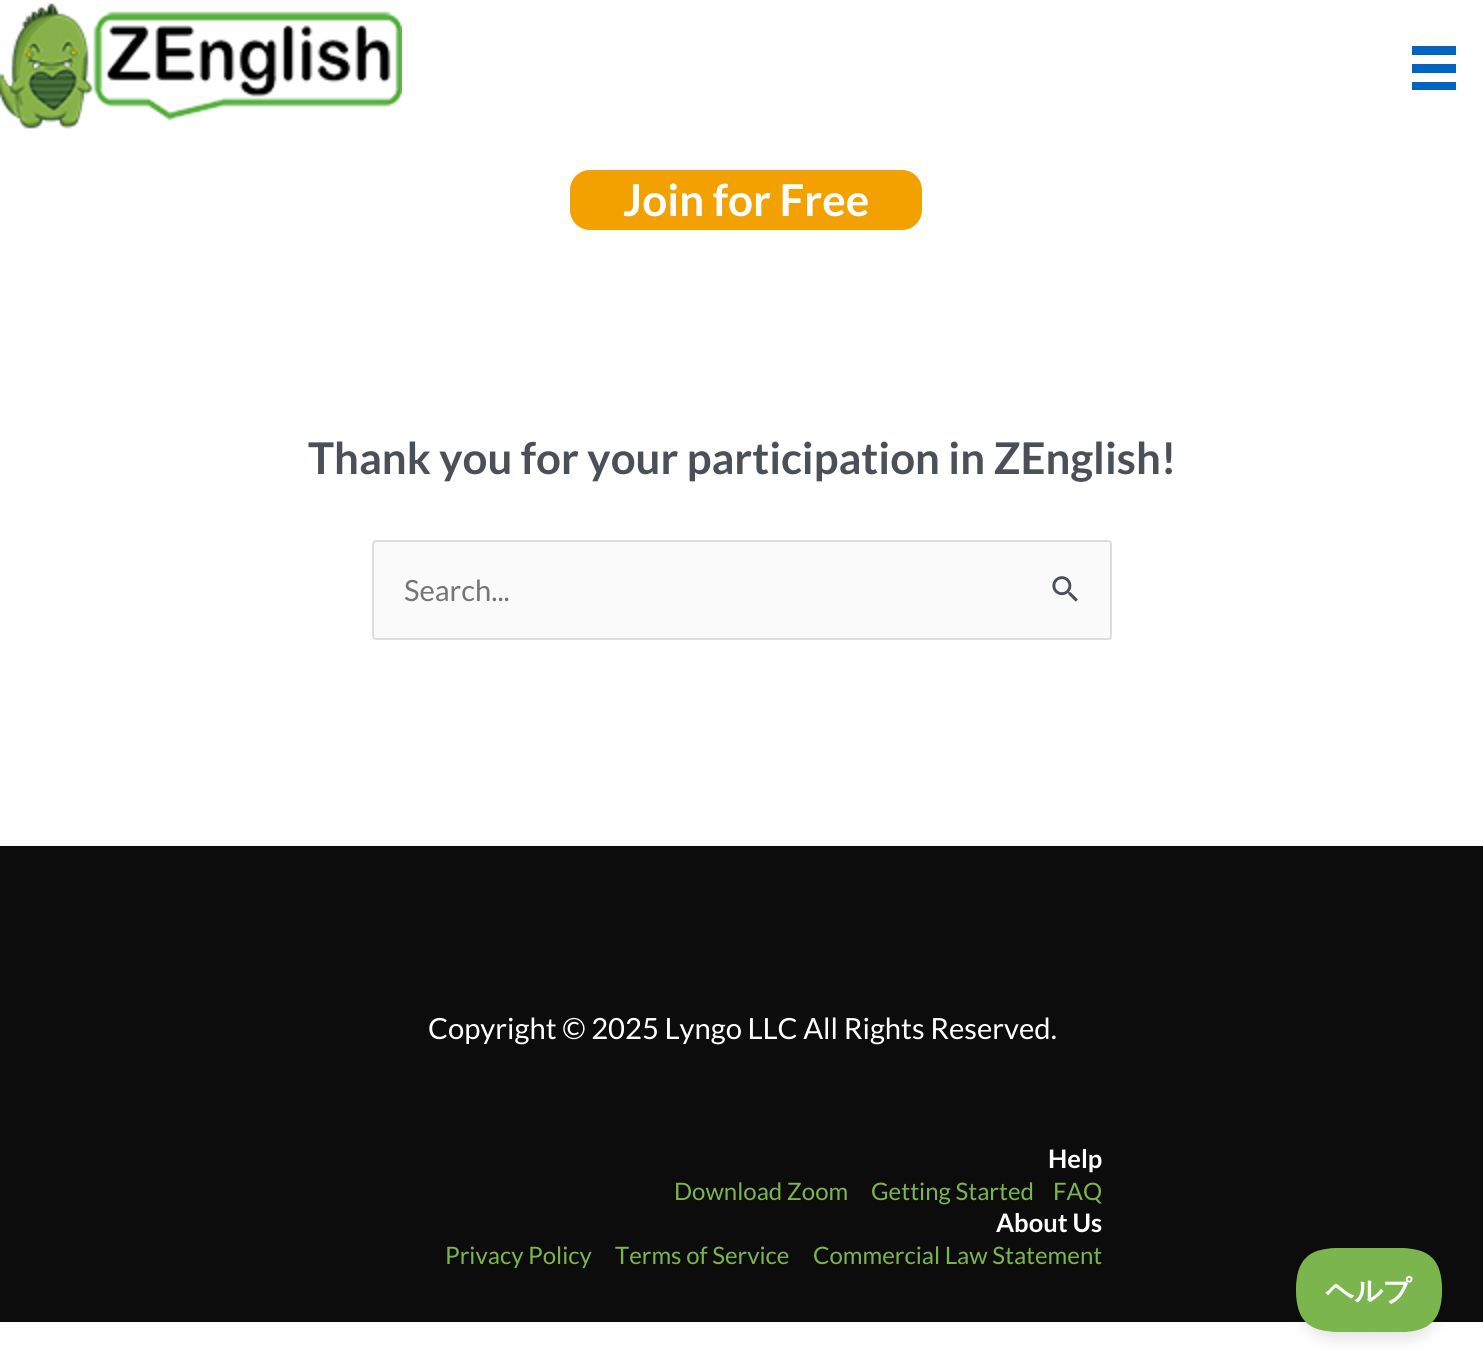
import math
import cairocffi as cairo

surface = cairo.ImageSurface(cairo.FORMAT_RGB24, 1483, 1351)
cr = cairo.Context(surface)
options = cairo.FontOptions()
options.set_hint_metrics(cairo.HINT_METRICS_OFF)
options.set_hint_style(cairo.HINT_STYLE_NONE)
cr.set_font_options(options)
cr.set_miter_limit(4)


def use_color(code):
    cr.set_source_rgb(*(v / 255 for v in bytes.fromhex(code[-6:])))


def round_rect(x, y, w, h, r):
    cr.new_sub_path()
    for i, (u, v) in enumerate([(x + w - r, y + h - r), (x + r, y + h - r), (x + r, y + r), (x + w - r, y + r)]):
        cr.arc(u, v, r, i * math.pi / 2, (i + 1) * math.pi / 2)
    cr.close_path()


def shadow(x, y, w, h, r, blur, alpha):
    cr.push_group_with_content(cairo.CONTENT_ALPHA)
    cr.set_operator(cairo.OPERATOR_SOURCE)
    for i in range(15, -16, -2):
        e = blur * i / 6
        if min(w, h) + 2 * e > 0:
            cr.set_source_rgba(0, 0, 0, alpha * math.erfc((i - 1) / 8.5) / 2)
            round_rect(x - e, y - e, w + 2 * e, h + 2 * e, max(0, min(r + e + blur * .6, min(w, h) / 2 + e)))
            cr.fill()
    cr.mask(cr.pop_group())


def picture(path, x, y, w, h):
    cr.save()
    cr.set_source_surface(cairo.ImageSurface.create_from_png(path), x, y)
    cr.rectangle(x, y, w, h)
    cr.fill()
    cr.restore()


use_color("#ffffff")
cr.paint()
picture("img1.png", 0, 3, 402, 126)
use_color("#0064c0")
cr.rectangle(1412, 46, 44, 9)
cr.fill()
cr.rectangle(1412, 64, 44, 9)
cr.fill()
cr.rectangle(1412, 82, 44, 8)
cr.fill()
use_color("#f2a100")
round_rect(571, 171, 350, 58, 19)
cr.fill_preserve()
cr.stroke()
cr.select_font_face("Lato", cairo.FONT_SLANT_NORMAL, cairo.FONT_WEIGHT_BOLD)
cr.set_font_size(44)
use_color("#ffffff")
cr.move_to(623, 216)
cr.show_text("Join for Free")
cr.set_font_size(43.75)
use_color("#4b4f58")
cr.move_to(308, 474)
cr.show_text("Thank you for your participation in ZEnglish!")
use_color("#fafafa")
round_rect(373, 541, 738, 98, 3)
cr.fill_preserve()
use_color("#dddddd")
cr.stroke()
cr.select_font_face("Lato")
cr.set_font_size(29.2)
use_color("#757575")
cr.move_to(404, 601)
cr.show_text("Search...")
picture("img2.png", 1052, 576, 26, 26)
use_color("#0c0c0c")
cr.rectangle(0, 846, 1483, 476)
cr.fill()
use_color("#ffffff")
cr.move_to(428, 1039)
cr.show_text("Copyright © 2025 Lyngo LLC All Rights Reserved.")
cr.select_font_face("Lato", cairo.FONT_SLANT_NORMAL, cairo.FONT_WEIGHT_BOLD)
cr.set_font_size(25.5)
cr.move_to(1048, 1168)
cr.show_text("Help")
cr.select_font_face("Lato")
cr.set_font_size(24)
use_color("#7bb54e")
cr.move_to(674, 1200)
cr.show_text("Download Zoom")
cr.move_to(871, 1200)
cr.show_text("Getting Started")
cr.move_to(1053, 1200)
cr.show_text("FAQ")
cr.select_font_face("Lato", cairo.FONT_SLANT_NORMAL, cairo.FONT_WEIGHT_BOLD)
cr.set_font_size(25.5)
use_color("#ffffff")
cr.move_to(996, 1232)
cr.show_text("About Us")
cr.select_font_face("Lato")
cr.set_font_size(24)
use_color("#7bb54e")
cr.move_to(445, 1264)
cr.show_text("Privacy Policy")
cr.move_to(615, 1264)
cr.show_text("Terms of Service")
cr.move_to(813, 1264)
cr.show_text("Commercial Law Statement")
cr.save()
cr.set_fill_rule(cairo.FILL_RULE_EVEN_ODD)
cr.new_path()
cr.move_to(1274, 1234)
cr.line_to(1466, 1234)
cr.line_to(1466, 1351)
cr.line_to(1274, 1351)
cr.close_path()
cr.move_to(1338, 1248)
cr.line_to(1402, 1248)
cr.curve_to(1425, 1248, 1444, 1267, 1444, 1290)
cr.curve_to(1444, 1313, 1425, 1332, 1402, 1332)
cr.line_to(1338, 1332)
cr.curve_to(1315, 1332, 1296, 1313, 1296, 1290)
cr.curve_to(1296, 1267, 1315, 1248, 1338, 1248)
cr.close_path()
cr.clip()
use_color("#000000")
shadow(1296, 1256, 148, 84, 42, 7, 0.1)
cr.restore()
picture("img3.png", 1296, 1248, 146, 84)
surface.write_to_png("result.png")
